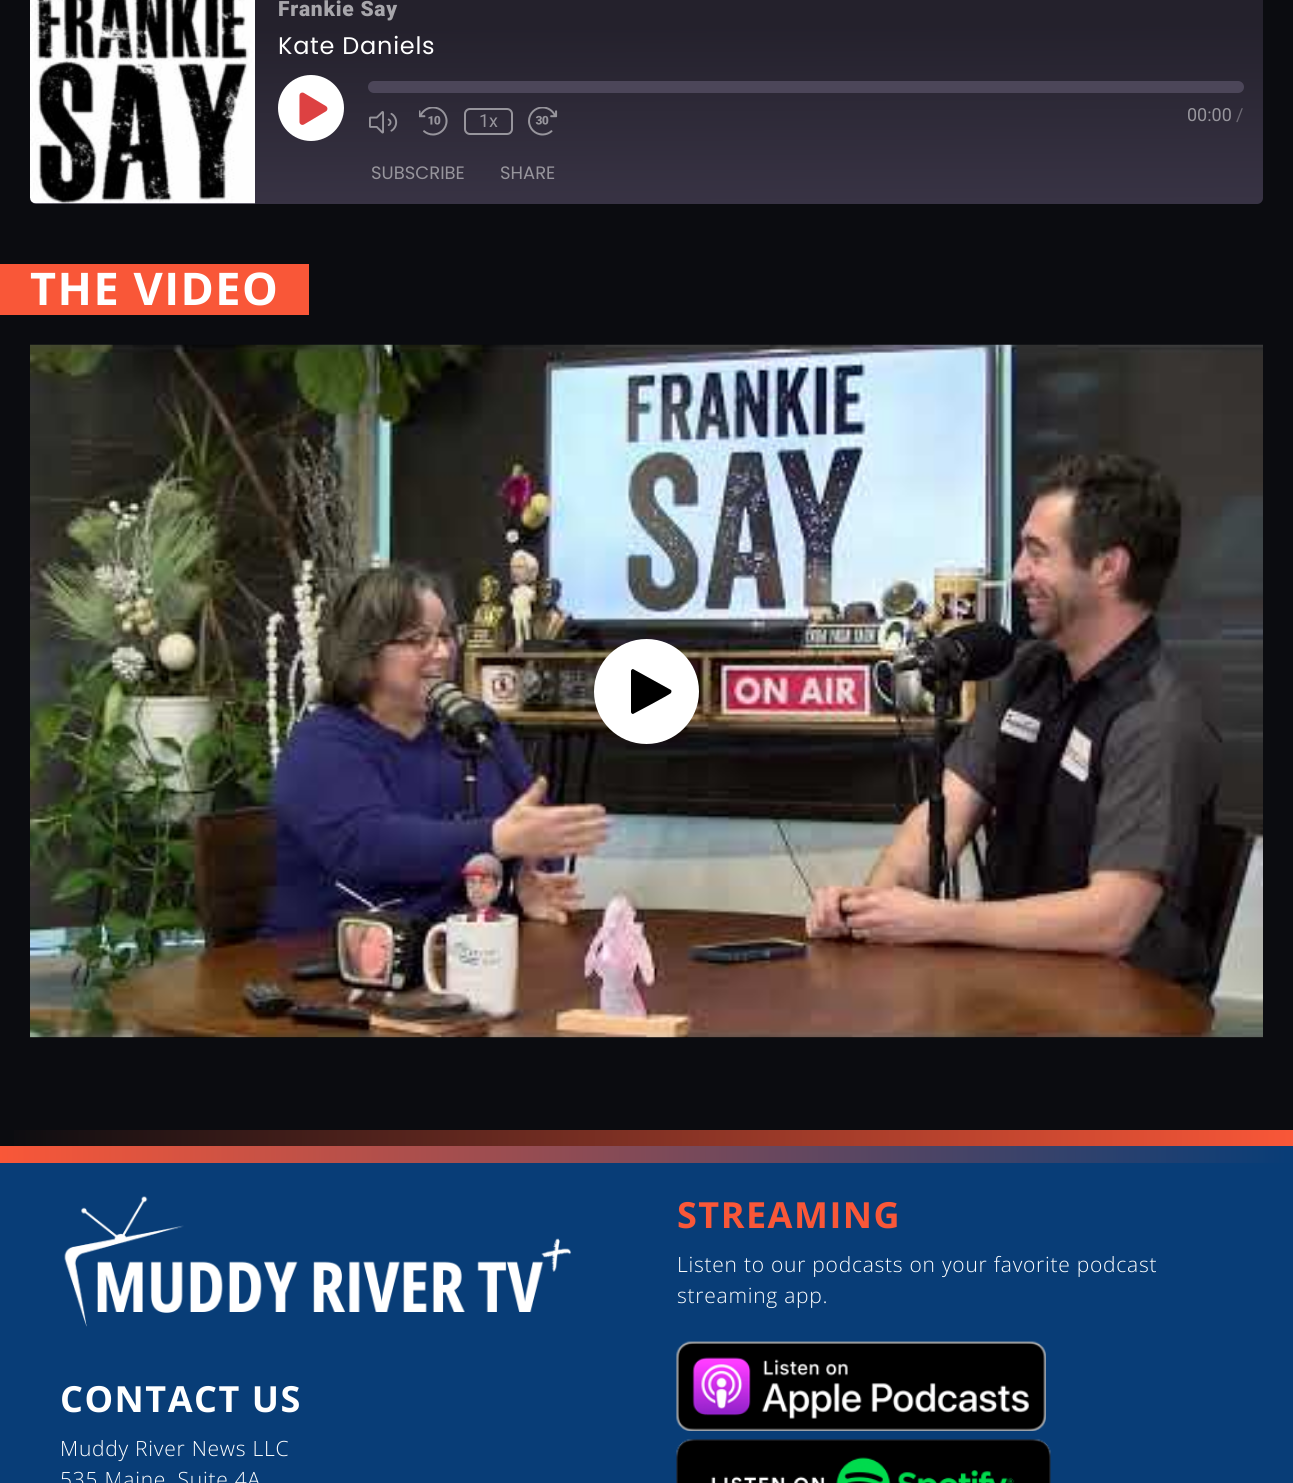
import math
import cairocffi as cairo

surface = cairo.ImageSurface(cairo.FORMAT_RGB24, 1293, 1483)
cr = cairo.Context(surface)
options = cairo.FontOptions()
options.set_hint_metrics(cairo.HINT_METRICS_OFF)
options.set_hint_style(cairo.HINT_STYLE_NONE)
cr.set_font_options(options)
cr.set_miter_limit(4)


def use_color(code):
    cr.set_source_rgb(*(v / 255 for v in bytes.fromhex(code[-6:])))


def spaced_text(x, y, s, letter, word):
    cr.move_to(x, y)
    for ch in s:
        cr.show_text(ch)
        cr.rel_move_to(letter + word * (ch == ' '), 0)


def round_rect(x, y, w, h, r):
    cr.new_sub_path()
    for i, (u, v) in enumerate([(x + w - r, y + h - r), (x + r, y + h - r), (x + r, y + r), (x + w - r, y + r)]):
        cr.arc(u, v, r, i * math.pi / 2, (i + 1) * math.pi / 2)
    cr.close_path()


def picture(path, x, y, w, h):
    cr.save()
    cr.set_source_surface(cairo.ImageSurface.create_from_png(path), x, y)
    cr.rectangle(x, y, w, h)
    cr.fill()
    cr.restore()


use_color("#0b0c10")
cr.paint()
gradient = cairo.LinearGradient(647, 207, 646, -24)
gradient.add_color_stop_rgba(0.01, 0.22, 0.2, 0.267, 1)
gradient.add_color_stop_rgba(0.78, 0.141, 0.129, 0.173, 1)
cr.set_source(gradient)
round_rect(30, -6, 1233, 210, 6)
cr.fill()
picture("img1.png", 30, 0, 225, 204)
cr.select_font_face("Roboto Black")
cr.set_font_size(21)
use_color("#a7a6ab")
spaced_text(278, 16, "Frankie Say", 0.75, 0)
cr.select_font_face("Poppins")
cr.set_font_size(24)
use_color("#ffffff")
spaced_text(278, 54, "Kate Daniels", 0.75, 0)
cr.new_path()
cr.arc(311, 108, 33, 0, 2 * math.pi)
cr.fill()
picture("img2.png", 299, 92, 29, 33)
use_color("#4c4659")
round_rect(368, 81, 876, 12, 6)
cr.fill()
picture("img3.png", 369, 111, 29, 23)
picture("img4.png", 419, 107, 29, 29)
round_rect(465, 109, 47, 25, 5)
cr.set_source_rgba(1, 1, 1, 0.5)
cr.stroke()
cr.select_font_face("Roboto")
cr.set_font_size(18)
use_color("#97959c")
cr.move_to(479, 127)
cr.show_text("1x")
picture("img5.png", 528, 107, 30, 29)
cr.move_to(1187, 121)
cr.show_text("00:00")
use_color("#6d6a74")
cr.move_to(1236, 121)
cr.show_text("/")
cr.select_font_face("Poppins")
use_color("#97959c")
cr.move_to(371, 179)
cr.show_text("SUBSCRIBE")
cr.move_to(500, 179)
cr.show_text("SHARE")
use_color("#f95738")
cr.rectangle(0, 264, 309, 51)
cr.fill()
cr.select_font_face("Open Sans", cairo.FONT_SLANT_NORMAL, cairo.FONT_WEIGHT_BOLD)
cr.set_font_size(45)
use_color("#ffffff")
spaced_text(30, 305, "THE VIDEO", 1.5, 0)
use_color("#000000")
cr.rectangle(30, 1037, 1233, 1)
cr.fill()
picture("img6.png", 30, 344, 1233, 694)
use_color("#ffffff")
cr.arc(646.5, 691.5, 52.5, 0, 2 * math.pi)
cr.fill()
use_color("#000000")
cr.new_path()
cr.move_to(633, 714)
cr.curve_to(632, 714, 631, 713, 631, 712)
cr.line_to(631, 671)
cr.curve_to(631, 670, 632, 669, 633, 669)
cr.line_to(671, 690)
cr.curve_to(671, 690, 672, 691, 671, 693)
cr.curve_to(669, 695, 633, 714, 633, 714)
cr.close_path()
cr.fill()
gradient = cairo.LinearGradient(0, 1138, 1293, 1138)
gradient.add_color_stop_rgba(0, 0.043, 0.047, 0.063, 1)
gradient.add_color_stop_rgba(1, 0.976, 0.341, 0.22, 1)
cr.set_source(gradient)
cr.rectangle(14, 1130, 1279, 16)
cr.fill()
gradient = cairo.LinearGradient(0, 1154, 1293, 1154)
gradient.add_color_stop_rgba(0, 0.976, 0.341, 0.22, 1)
gradient.add_color_stop_rgba(1, 0.031, 0.239, 0.467, 1)
cr.set_source(gradient)
cr.rectangle(0, 1146, 1293, 17)
cr.fill()
use_color("#083d77")
cr.rectangle(0, 1163, 1293, 320)
cr.fill()
cr.set_font_size(36)
use_color("#f95738")
spaced_text(677, 1228, "STREAMING", 1.5, 0)
cr.select_font_face("Open Sans Light")
cr.set_font_size(21)
use_color("#ffffff")
spaced_text(677, 1272, "Listen to our podcasts on your favorite podcast", 0.75, 0)
spaced_text(677, 1303, "streaming app.", 0.75, 0)
picture("img7.png", 676, 1341, 370, 90)
picture("img8.png", 676, 1439, 375, 44)
picture("img9.png", 64, 1196, 508, 131)
cr.select_font_face("Open Sans", cairo.FONT_SLANT_NORMAL, cairo.FONT_WEIGHT_BOLD)
cr.set_font_size(36)
spaced_text(60, 1412, "CONTACT US", 1.5, 0)
cr.select_font_face("Open Sans Light")
cr.set_font_size(21)
spaced_text(60, 1456, "Muddy River News LLC", 0.75, 0)
spaced_text(60, 1487, "535 Maine, Suite 4A", 0.75, 0)
surface.write_to_png("result.png")
